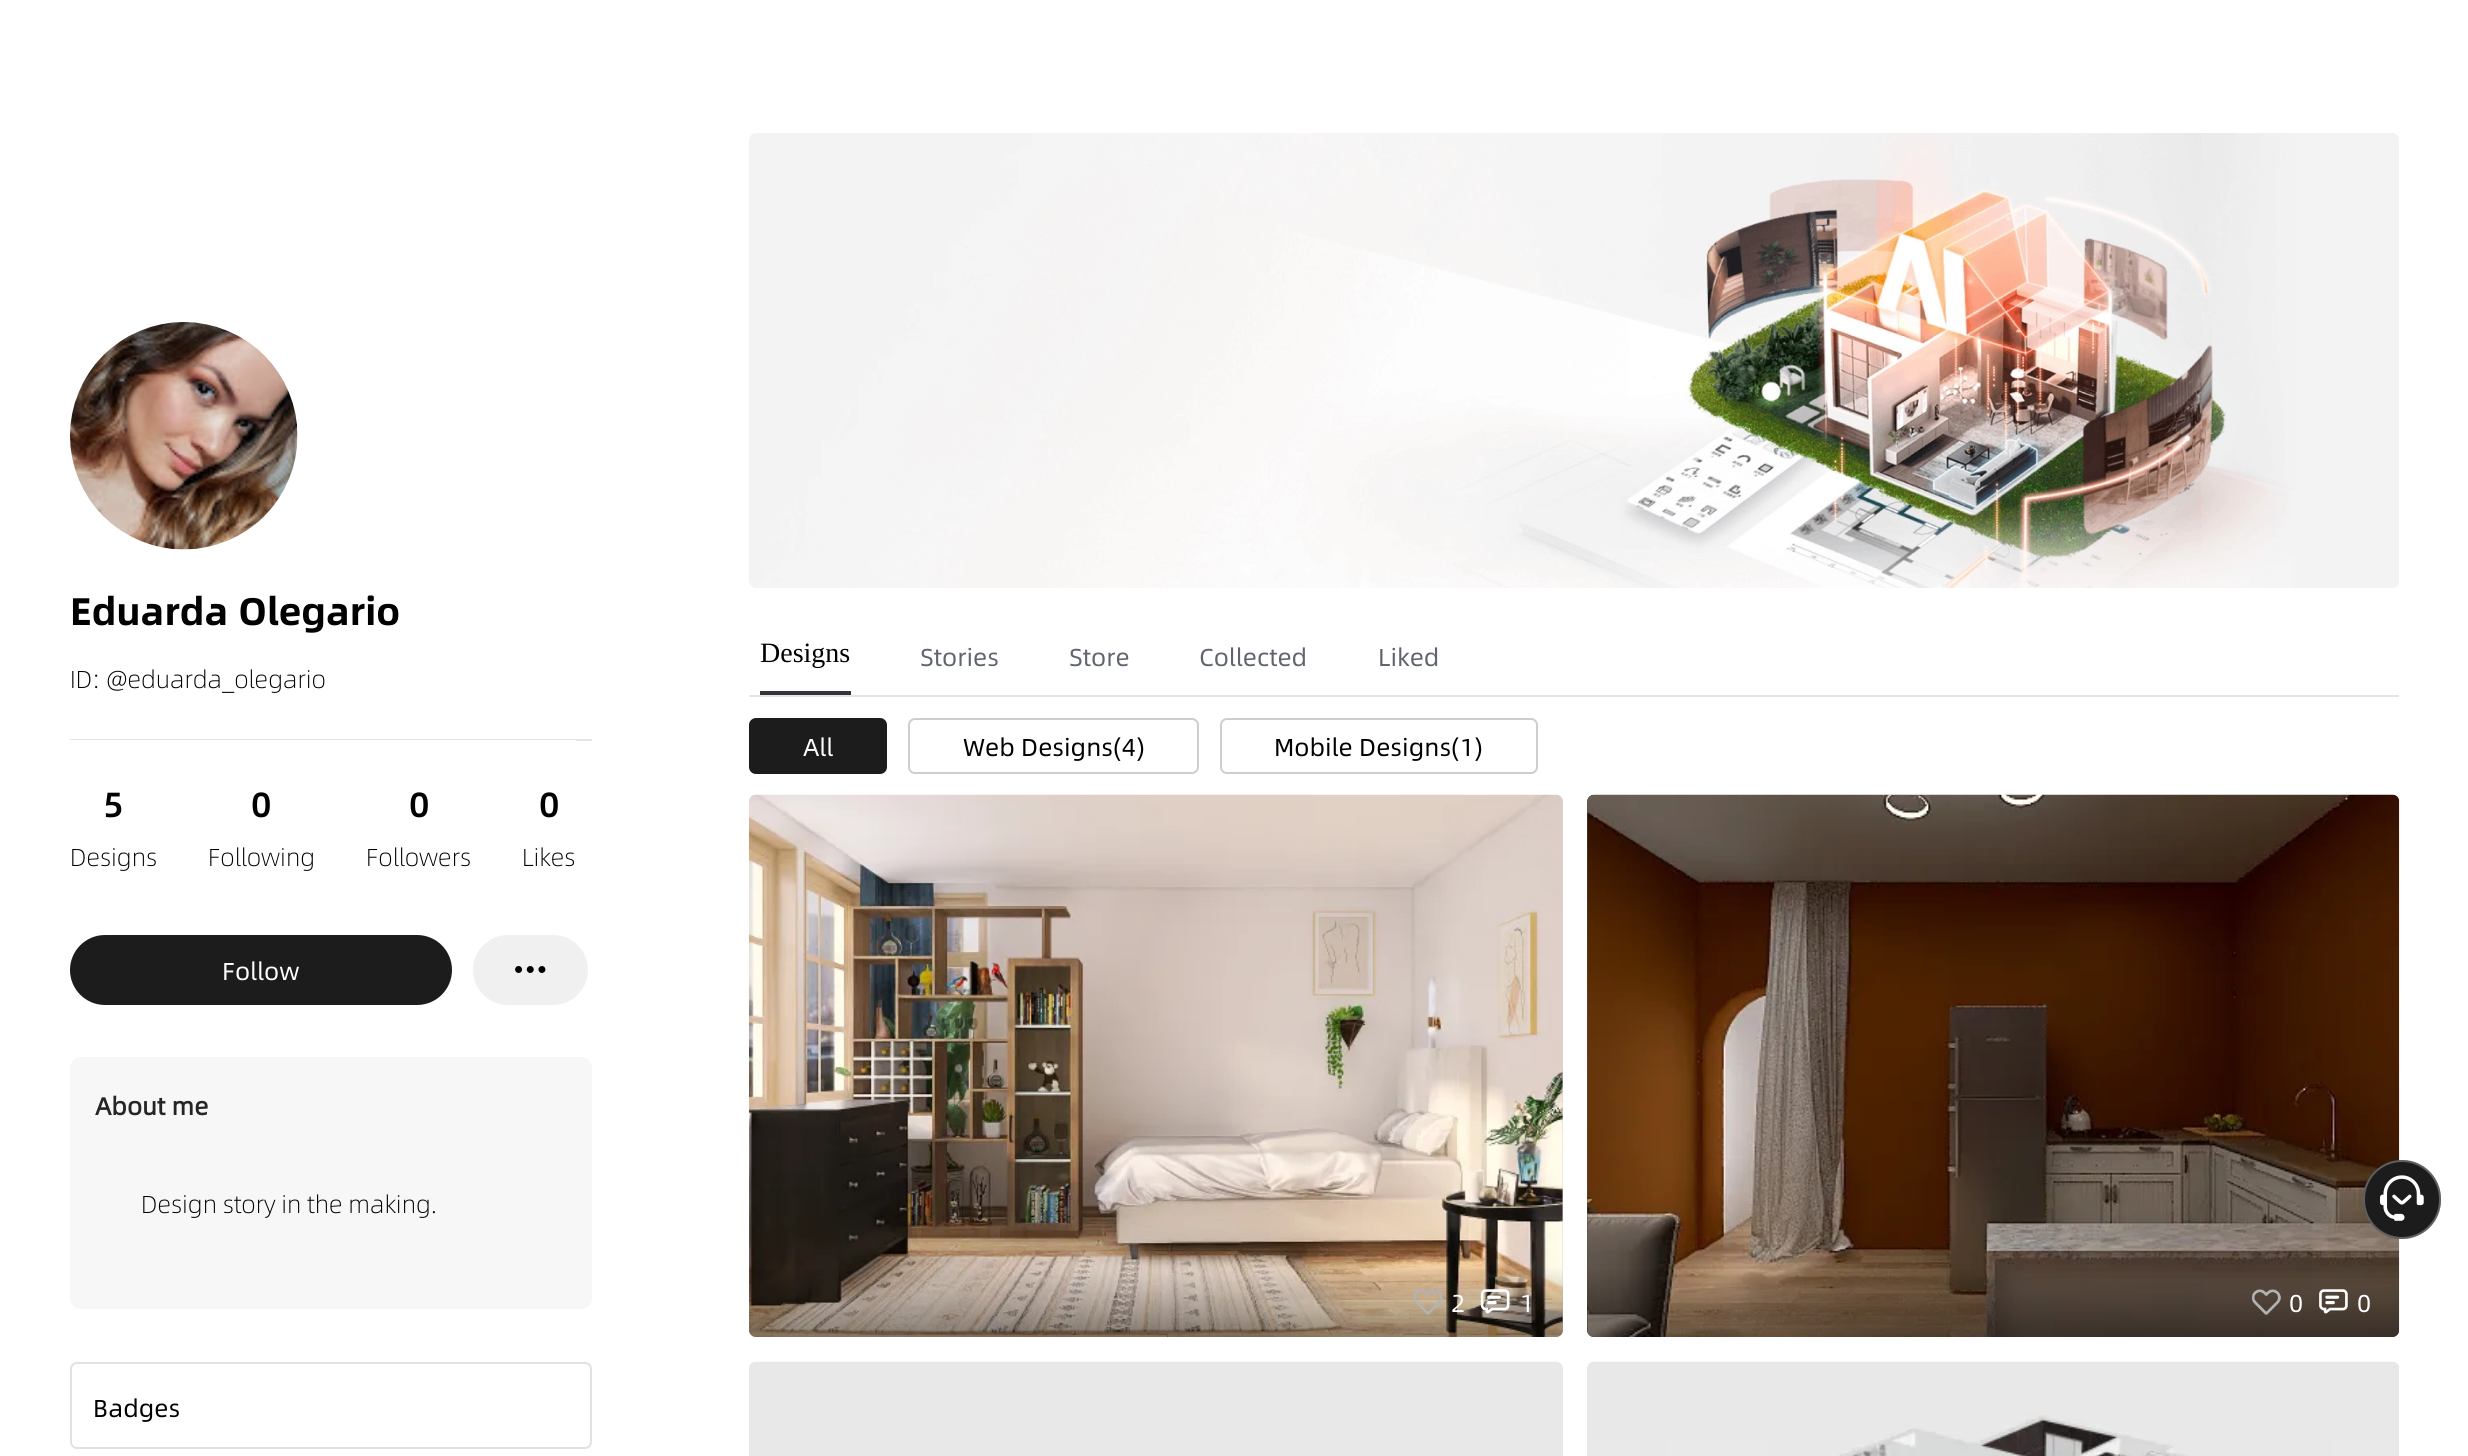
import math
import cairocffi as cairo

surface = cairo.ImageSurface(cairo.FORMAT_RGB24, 2468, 1456)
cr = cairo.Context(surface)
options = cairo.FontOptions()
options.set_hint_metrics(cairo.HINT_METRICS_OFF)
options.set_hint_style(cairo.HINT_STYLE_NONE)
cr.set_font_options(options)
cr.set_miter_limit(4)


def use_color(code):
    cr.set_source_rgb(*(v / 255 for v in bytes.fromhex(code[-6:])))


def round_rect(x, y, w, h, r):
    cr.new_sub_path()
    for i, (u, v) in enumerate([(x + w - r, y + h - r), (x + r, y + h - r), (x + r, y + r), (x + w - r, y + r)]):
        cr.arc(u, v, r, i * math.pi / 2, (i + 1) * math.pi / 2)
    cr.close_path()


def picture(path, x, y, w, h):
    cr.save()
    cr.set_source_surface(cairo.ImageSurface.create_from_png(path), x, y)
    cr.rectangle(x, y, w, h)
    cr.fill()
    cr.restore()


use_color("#ffffff")
cr.paint()
picture("img1.png", 70, 322, 228, 228)
cr.select_font_face("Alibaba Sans", cairo.FONT_SLANT_NORMAL, cairo.FONT_WEIGHT_BOLD)
cr.set_font_size(38.5)
use_color("#000000")
cr.move_to(70, 625)
cr.show_text("Eduarda Olegario")
cr.select_font_face("Alibaba Sans Light")
cr.set_font_size(24.5)
cr.move_to(70, 688)
cr.show_text("ID: @eduarda_olegario")
use_color("#e5e5e5")
cr.rectangle(70, 739, 522, 2)
cr.fill()
use_color("#ffffff")
cr.rectangle(70, 740, 506, 1)
cr.fill()
cr.select_font_face("Alibaba Sans Medium")
cr.set_font_size(35)
use_color("#000000")
cr.move_to(103, 817)
cr.show_text("5")
cr.select_font_face("Alibaba Sans Light")
cr.set_font_size(24.5)
cr.move_to(70, 866)
cr.show_text("Designs")
cr.select_font_face("Alibaba Sans Medium")
cr.set_font_size(35)
cr.move_to(251, 817)
cr.show_text("0")
cr.select_font_face("Alibaba Sans Light")
cr.set_font_size(24.5)
cr.move_to(208, 866)
cr.show_text("Following")
cr.select_font_face("Alibaba Sans Medium")
cr.set_font_size(35)
cr.move_to(409, 817)
cr.show_text("0")
cr.select_font_face("Alibaba Sans Light")
cr.set_font_size(24.5)
cr.move_to(366, 866)
cr.show_text("Followers")
cr.select_font_face("Alibaba Sans Medium")
cr.set_font_size(35)
cr.move_to(539, 817)
cr.show_text("0")
cr.select_font_face("Alibaba Sans Light")
cr.set_font_size(24.5)
cr.move_to(522, 866)
cr.show_text("Likes")
use_color("#1c1c1c")
round_rect(70, 935, 382, 70, 35)
cr.fill()
cr.select_font_face("Alibaba Sans")
use_color("#ffffff")
cr.move_to(222, 980)
cr.show_text("Follow")
use_color("#f0f0f0")
round_rect(473, 935, 115, 70, 35)
cr.fill()
picture("img2.png", 515, 966, 31, 7)
use_color("#f7f7f7")
round_rect(70, 1057, 522, 252, 11)
cr.fill()
cr.select_font_face("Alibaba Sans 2", cairo.FONT_SLANT_NORMAL, cairo.FONT_WEIGHT_BOLD)
use_color("#252525")
cr.move_to(95, 1115)
cr.show_text("About me")
cr.select_font_face("Alibaba Sans Light")
use_color("#000000")
cr.move_to(141, 1213)
cr.show_text("Design story in the making.")
round_rect(71, 1363, 520, 85, 6)
use_color("#e1e1e1")
cr.stroke()
cr.select_font_face("Alibaba Sans")
use_color("#000000")
cr.move_to(93, 1417)
cr.show_text("Badges")
picture("img3.png", 749, 133, 1650, 455)
use_color("#e5e5e5")
cr.rectangle(749, 695, 1650, 2)
cr.fill()
use_color("#33353b")
cr.rectangle(760, 691, 91, 4)
cr.fill()
cr.select_font_face("Liberation Serif")
cr.set_font_size(28)
use_color("#000000")
cr.move_to(760, 662)
cr.show_text("Designs")
cr.select_font_face("Alibaba Sans")
cr.set_font_size(24.5)
use_color("#60646f")
cr.move_to(920, 666)
cr.show_text("Stories")
cr.move_to(1069, 666)
cr.show_text("Store")
cr.move_to(1199, 666)
cr.show_text("Collected")
cr.move_to(1378, 666)
cr.show_text("Liked")
use_color("#1c1c1c")
round_rect(750, 719, 136, 54, 6)
cr.fill_preserve()
cr.stroke()
use_color("#ffffff")
cr.move_to(803, 756)
cr.show_text("All")
round_rect(909, 719, 289, 54, 6)
use_color("#cecece")
cr.stroke()
use_color("#000000")
cr.move_to(963, 756)
cr.show_text("Web Designs(4)")
round_rect(1221, 719, 316, 54, 6)
use_color("#cecece")
cr.stroke()
use_color("#000000")
cr.move_to(1274, 756)
cr.show_text("Mobile Designs(1)")
use_color("#e5d4ce")
round_rect(749, 795, 814, 542, 7)
cr.fill()
picture("img4.png", 749, 794, 814, 543)
gradient = cairo.LinearGradient(1156, 1267, 1156, 1337)
gradient.add_color_stop_rgba(0, 0, 0, 0, 0)
gradient.add_color_stop_rgba(1, 0, 0, 0, 0.4)
cr.set_source(gradient)
cr.new_path()
cr.move_to(749, 1267)
cr.line_to(1563, 1267)
cr.line_to(1563, 1330)
cr.curve_to(1563, 1334, 1560, 1337, 1556, 1337)
cr.line_to(756, 1337)
cr.curve_to(752, 1337, 749, 1334, 749, 1330)
cr.close_path()
cr.fill()
picture("img5.png", 1413, 1289, 30, 26)
use_color("#ffffff")
cr.move_to(1451, 1312)
cr.show_text("2")
picture("img6.png", 1480, 1289, 30, 25)
cr.move_to(1520, 1312)
cr.show_text("1")
use_color("#5a4c41")
round_rect(1587, 795, 812, 542, 7)
cr.fill()
picture("img7.png", 1587, 794, 813, 543)
gradient = cairo.LinearGradient(1993, 1267, 1993, 1337)
gradient.add_color_stop_rgba(0, 0, 0, 0, 0)
gradient.add_color_stop_rgba(1, 0, 0, 0, 0.4)
cr.set_source(gradient)
cr.new_path()
cr.move_to(1587, 1267)
cr.line_to(2399, 1267)
cr.line_to(2399, 1330)
cr.curve_to(2399, 1334, 2396, 1337, 2392, 1337)
cr.line_to(1594, 1337)
cr.curve_to(1590, 1337, 1587, 1334, 1587, 1330)
cr.close_path()
cr.fill()
picture("img8.png", 2252, 1289, 29, 26)
use_color("#ffffff")
cr.move_to(2289, 1312)
cr.show_text("0")
picture("img9.png", 2319, 1289, 29, 25)
cr.move_to(2357, 1312)
cr.show_text("0")
use_color("#e8e8e8")
round_rect(749, 1362, 814, 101, 7)
cr.fill()
picture("img10.png", 749, 1361, 813, 7)
round_rect(1587, 1362, 812, 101, 7)
cr.fill()
picture("img11.png", 1588, 1361, 811, 95)
use_color("#1c1c1c")
round_rect(2363, 1160, 78, 79, 39)
cr.fill()
round_rect(2364, 1161, 76, 77, 38)
cr.set_source_rgba(1, 1, 1, 0.3)
cr.stroke()
picture("img12.png", 2380, 1175, 44, 46)
surface.write_to_png("result.png")
